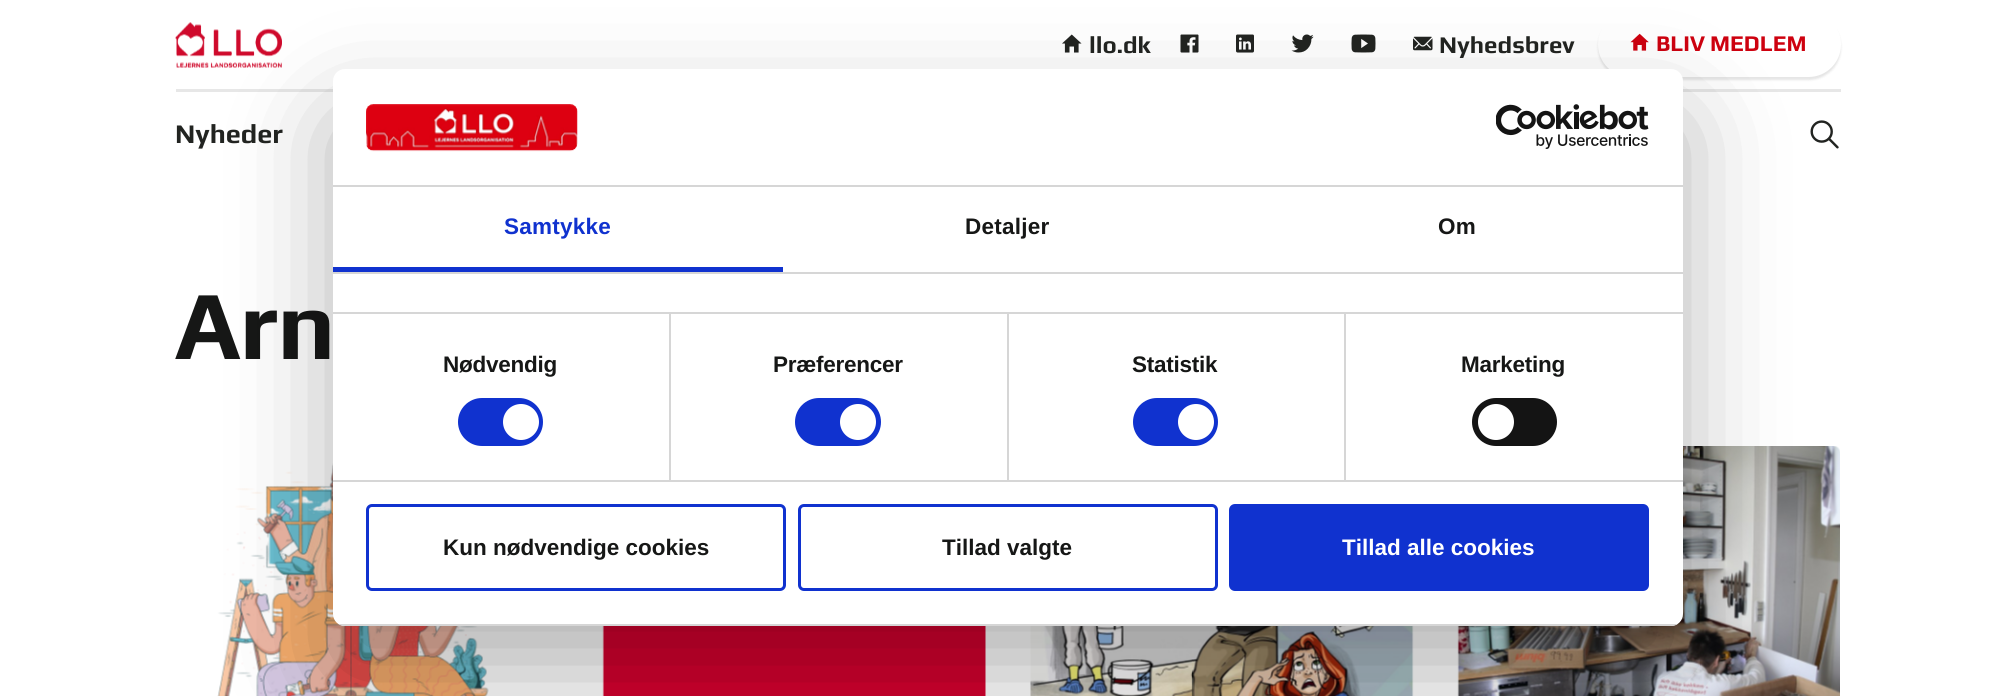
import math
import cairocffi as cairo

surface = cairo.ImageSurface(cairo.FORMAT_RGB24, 2014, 696)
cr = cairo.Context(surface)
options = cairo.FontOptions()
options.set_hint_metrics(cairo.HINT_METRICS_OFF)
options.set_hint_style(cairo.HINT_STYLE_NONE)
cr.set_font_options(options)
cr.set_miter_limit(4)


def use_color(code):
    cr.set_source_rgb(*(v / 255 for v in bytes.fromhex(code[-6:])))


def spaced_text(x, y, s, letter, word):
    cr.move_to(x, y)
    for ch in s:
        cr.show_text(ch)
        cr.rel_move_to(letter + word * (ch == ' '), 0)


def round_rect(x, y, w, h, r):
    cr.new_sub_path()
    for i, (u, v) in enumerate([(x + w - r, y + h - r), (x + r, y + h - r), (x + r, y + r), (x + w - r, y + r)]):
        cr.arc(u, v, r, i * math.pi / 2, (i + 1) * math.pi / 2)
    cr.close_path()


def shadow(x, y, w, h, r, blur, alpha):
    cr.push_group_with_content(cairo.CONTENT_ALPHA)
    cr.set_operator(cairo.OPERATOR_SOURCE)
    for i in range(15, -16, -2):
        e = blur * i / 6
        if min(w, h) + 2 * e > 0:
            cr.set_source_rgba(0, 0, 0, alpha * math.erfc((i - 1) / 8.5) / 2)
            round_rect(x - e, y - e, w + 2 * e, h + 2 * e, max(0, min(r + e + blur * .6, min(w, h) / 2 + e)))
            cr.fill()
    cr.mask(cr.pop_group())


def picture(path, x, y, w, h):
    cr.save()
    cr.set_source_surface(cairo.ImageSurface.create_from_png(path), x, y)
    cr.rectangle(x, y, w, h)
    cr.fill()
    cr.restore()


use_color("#ffffff")
cr.paint()
picture("img1.png", 175, 22, 107, 46)
picture("img2.png", 1062, 34, 20, 19)
cr.select_font_face("Play", cairo.FONT_SLANT_NORMAL, cairo.FONT_WEIGHT_BOLD)
cr.set_font_size(24)
use_color("#222421")
cr.move_to(1089, 53)
cr.show_text("llo.dk")
picture("img3.png", 1180, 34, 19, 19)
picture("img4.png", 1236, 34, 18, 19)
picture("img5.png", 1291, 34, 23, 19)
picture("img6.png", 1351, 34, 25, 19)
picture("img7.png", 1413, 36, 20, 15)
cr.move_to(1439, 53)
cr.show_text("Nyhedsbrev")
use_color("#000000")
shadow(1598, 15, 243, 65, 32.5, 1, 0.1)
use_color("#ffffff")
round_rect(1599.5, 13.5, 240, 62, 31)
cr.fill_preserve()
cr.set_line_width(3)
cr.stroke()
picture("img8.png", 1630, 33, 19, 18)
cr.set_font_size(22.5)
use_color("#ce010f")
cr.move_to(1656, 51)
cr.show_text("BLIV MEDLEM")
cr.set_font_size(27)
use_color("#222421")
cr.move_to(175, 143)
cr.show_text("Nyheder")
picture("img9.png", 1810, 120, 29, 29)
use_color("#e7e7e7")
cr.rectangle(176, 89, 1665, 3)
cr.fill()
cr.set_font_size(98)
use_color("#161716")
spaced_text(175, 359, "Arn", -1, 0)
picture("img10.png", 217, 463, 272, 233)
picture("img11.png", 602, 626, 384, 70)
picture("img12.png", 1030, 626, 384, 70)
picture("img13.png", 1457, 446, 383, 250)
use_color("#000000")
shadow(333, 117, 1350, 557, 12, 51, 0.3)
use_color("#ffffff")
round_rect(333, 69, 1350, 557, 12)
cr.fill()
use_color("#d6d6d6")
cr.rectangle(333, 185, 1350, 2)
cr.fill()
picture("img14.png", 366, 104, 212, 48)
picture("img15.png", 1496, 104, 153, 45)
cr.rectangle(333, 272, 1350, 2)
cr.fill()
use_color("#1032cf")
cr.rectangle(333, 267, 450, 5)
cr.fill()
cr.select_font_face("Liberation Sans", cairo.FONT_SLANT_NORMAL, cairo.FONT_WEIGHT_BOLD)
cr.set_font_size(22.5)
spaced_text(504, 234, "Samtykke", 0.25, 0)
use_color("#161716")
spaced_text(965, 234, "Detaljer", 0.25, 0)
spaced_text(1438, 234, "Om", 0.25, 0)
use_color("#d6d6d6")
cr.rectangle(333, 312, 1350, 2)
cr.fill()
cr.rectangle(333, 480, 1350, 2)
cr.fill()
cr.rectangle(669, 314, 2, 166)
cr.fill()
use_color("#161716")
spaced_text(443, 372, "Nødvendig", -0.25, 0)
use_color("#1032cf")
round_rect(458, 398, 85, 48, 24)
cr.fill()
use_color("#ffffff")
cr.arc(521, 422, 18, 0, 2 * math.pi)
cr.fill()
use_color("#d6d6d6")
cr.rectangle(1007, 314, 2, 166)
cr.fill()
use_color("#161716")
spaced_text(773, 372, "Præferencer", -0.25, 0)
use_color("#1032cf")
round_rect(795, 398, 86, 48, 24)
cr.fill()
use_color("#ffffff")
cr.arc(858, 422, 18, 0, 2 * math.pi)
cr.fill()
use_color("#d6d6d6")
cr.rectangle(1344, 314, 2, 166)
cr.fill()
use_color("#161716")
spaced_text(1132, 372, "Statistik", -0.25, 0)
use_color("#1032cf")
round_rect(1133, 398, 85, 48, 24)
cr.fill()
use_color("#ffffff")
cr.arc(1196, 422, 18, 0, 2 * math.pi)
cr.fill()
use_color("#161716")
spaced_text(1461, 372, "Marketing", -0.25, 0)
use_color("#141414")
round_rect(1472, 398, 85, 48, 24)
cr.fill()
use_color("#ffffff")
cr.arc(1496, 422, 18, 0, 2 * math.pi)
cr.fill()
cr.save()
round_rect(333, 69, 1350, 557, 12)
cr.clip()
use_color("#d6d6d6")
cr.rectangle(333, 624, 1350, 2)
cr.fill()
cr.restore()
round_rect(367.5, 505.5, 417, 84, 4.5)
use_color("#1032cf")
cr.stroke()
use_color("#161716")
cr.move_to(443, 555)
cr.show_text("Kun nødvendige cookies")
round_rect(799.5, 505.5, 417, 84, 4.5)
use_color("#1032cf")
cr.stroke()
use_color("#161716")
cr.move_to(942, 555)
cr.show_text("Tillad valgte")
use_color("#1032cf")
round_rect(1230.5, 505.5, 417, 84, 4.5)
cr.fill_preserve()
cr.stroke()
use_color("#ffffff")
cr.move_to(1342, 555)
cr.show_text("Tillad alle cookies")
surface.write_to_png("result.png")
